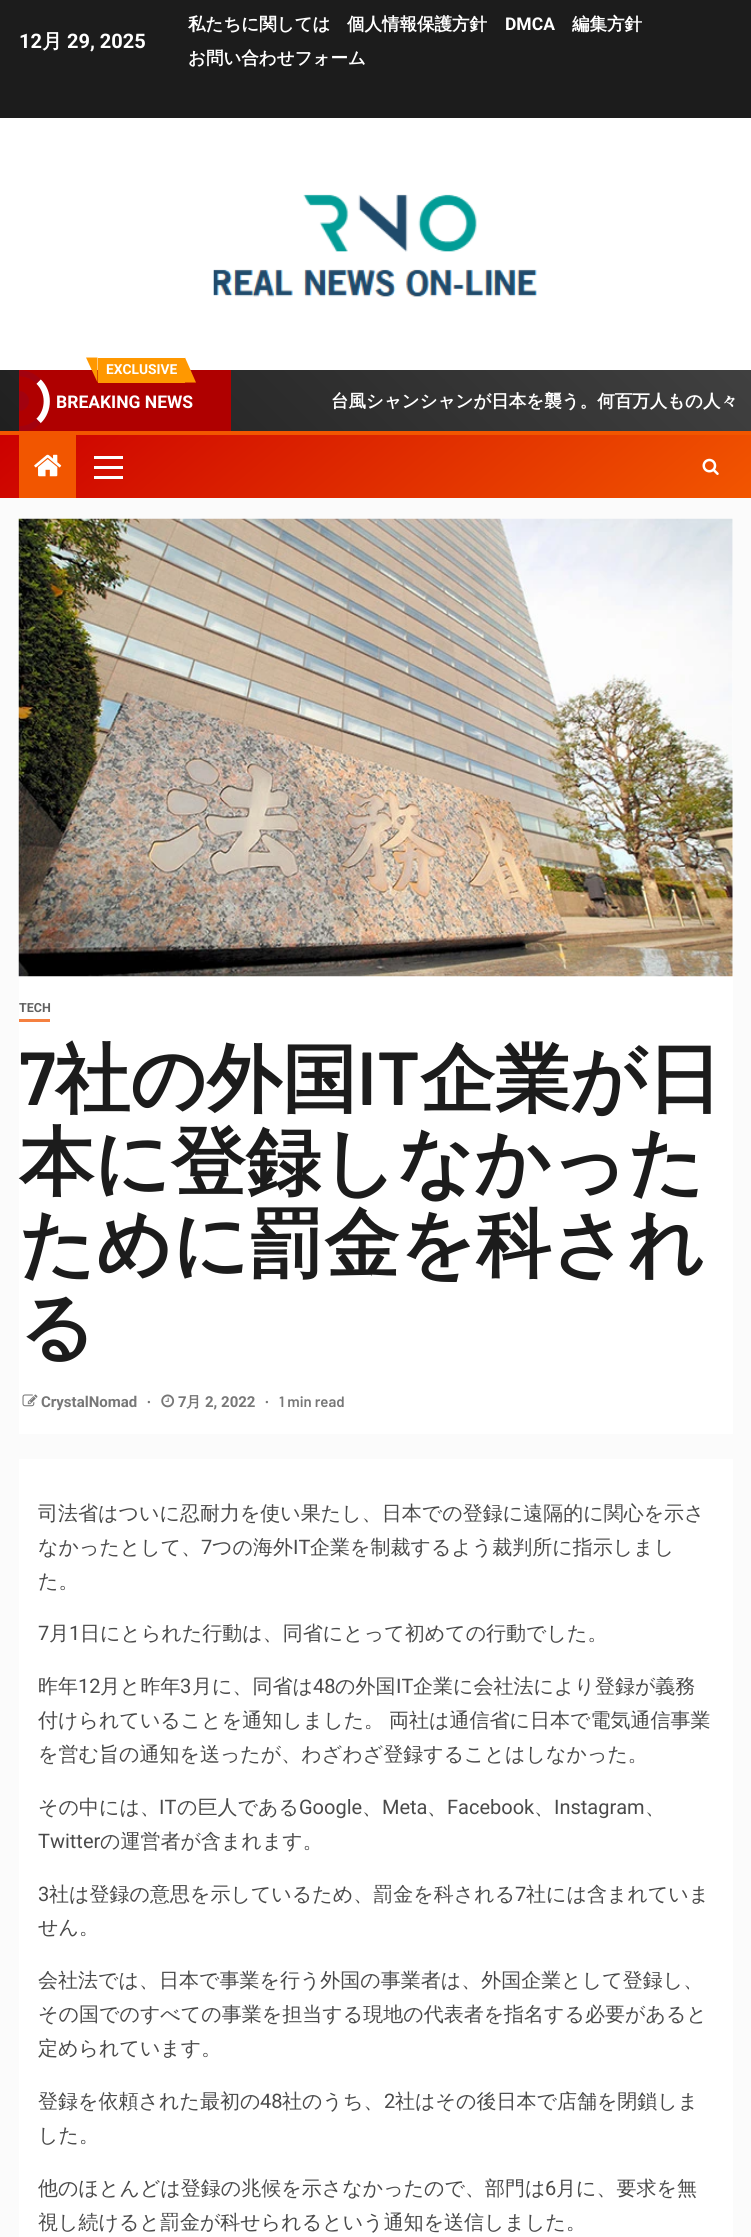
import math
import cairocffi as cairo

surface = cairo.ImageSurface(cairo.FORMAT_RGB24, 751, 2237)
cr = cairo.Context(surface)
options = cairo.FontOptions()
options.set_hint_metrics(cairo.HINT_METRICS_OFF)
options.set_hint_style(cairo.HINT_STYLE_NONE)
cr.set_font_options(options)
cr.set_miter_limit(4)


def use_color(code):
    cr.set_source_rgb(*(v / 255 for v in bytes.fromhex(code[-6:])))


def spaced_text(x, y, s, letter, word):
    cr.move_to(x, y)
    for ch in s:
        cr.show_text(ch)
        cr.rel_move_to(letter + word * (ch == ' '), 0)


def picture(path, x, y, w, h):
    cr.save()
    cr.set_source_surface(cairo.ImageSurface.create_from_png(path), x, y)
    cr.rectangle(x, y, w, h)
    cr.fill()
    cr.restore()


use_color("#fbfbfb")
cr.paint()
use_color("#ffffff")
cr.rectangle(0, 118, 751, 252)
cr.fill()
use_color("#1c1c1c")
cr.rectangle(0, 0, 751, 118)
cr.fill()
cr.select_font_face("Roboto", cairo.FONT_SLANT_NORMAL, cairo.FONT_WEIGHT_BOLD)
cr.set_font_size(20)
use_color("#ffffff")
cr.move_to(19, 48)
cr.show_text("12")
cr.select_font_face("WenQuanYi Zen Hei", cairo.FONT_SLANT_NORMAL, cairo.FONT_WEIGHT_BOLD)
cr.move_to(42, 48)
cr.show_text("月")
cr.select_font_face("Roboto", cairo.FONT_SLANT_NORMAL, cairo.FONT_WEIGHT_BOLD)
cr.move_to(67, 48)
cr.show_text("29, 2025")
cr.select_font_face("WenQuanYi Zen Hei", cairo.FONT_SLANT_NORMAL, cairo.FONT_WEIGHT_BOLD)
cr.set_font_size(17.5)
cr.move_to(188, 30)
cr.show_text("私たちに関しては")
cr.move_to(347, 30)
cr.show_text("個人情報保護方針")
cr.select_font_face("Roboto", cairo.FONT_SLANT_NORMAL, cairo.FONT_WEIGHT_BOLD)
cr.move_to(505, 30)
cr.show_text("DMCA")
cr.select_font_face("WenQuanYi Zen Hei", cairo.FONT_SLANT_NORMAL, cairo.FONT_WEIGHT_BOLD)
cr.move_to(572, 30)
cr.show_text("編集方針")
cr.move_to(188, 64)
cr.show_text("お問い合わせフォーム")
picture("img1.png", 213, 194, 324, 103)
gradient = cairo.LinearGradient(173, 604, 579, 198)
gradient.add_color_stop_rgba(0, 0.125, 0.125, 0.125, 1)
gradient.add_color_stop_rgba(1, 0.251, 0.251, 0.251, 1)
cr.set_source(gradient)
cr.rectangle(0, 370, 751, 61)
cr.fill()
use_color("#af0000")
cr.rectangle(19, 370, 212, 61)
cr.fill()
use_color("#ff9800")
cr.rectangle(98, 358, 87, 25)
cr.fill()
cr.new_path()
cr.move_to(86, 357.5)
cr.line_to(97.5, 357.5)
cr.line_to(97.5, 382.5)
cr.close_path()
cr.fill()
cr.select_font_face("Roboto", cairo.FONT_SLANT_NORMAL, cairo.FONT_WEIGHT_BOLD)
cr.set_font_size(13.75)
use_color("#ffffff")
cr.move_to(106, 374)
cr.show_text("EXCLUSIVE")
use_color("#ff9800")
cr.new_path()
cr.move_to(196, 382.5)
cr.line_to(185, 382.5)
cr.line_to(185, 357.5)
cr.close_path()
cr.fill()
cr.new_path()
cr.move_to(38.5, 381.5)
cr.curve_to(49.5, 392, 49.5, 410.5, 38.5, 421)
use_color("#ffffff")
cr.set_line_width(6.2)
cr.stroke()
cr.save()
cr.rectangle(19, 370, 212, 61)
cr.clip()
cr.new_path()
cr.move_to(-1, 381.5)
cr.curve_to(9.5, 370.5, 28, 370.5, 38.5, 381.5)
cr.move_to(38.5, 421)
cr.curve_to(28, 432, 9.5, 432, -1, 421)
use_color("#a2020f")
cr.stroke()
cr.restore()
use_color("#a2020f")
cr.new_path()
cr.move_to(19, 391)
cr.curve_to(24.5, 391, 29, 395.5, 29, 401)
cr.curve_to(29, 406.5, 24.5, 411, 19, 411)
cr.close_path()
cr.fill()
cr.set_font_size(17.5)
use_color("#ffffff")
cr.move_to(56, 408)
cr.show_text("BREAKING NEWS")
cr.select_font_face("WenQuanYi Zen Hei", cairo.FONT_SLANT_NORMAL, cairo.FONT_WEIGHT_BOLD)
cr.move_to(331, 407)
cr.show_text("台風シャンシャンが日本を襲う。何百万人もの人々")
gradient = cairo.LinearGradient(205, 263, 546, 670)
gradient.add_color_stop_rgba(0, 0.8, 0, 0, 1)
gradient.add_color_stop_rgba(1, 0.949, 0.337, 0, 1)
cr.set_source(gradient)
cr.rectangle(0, 435, 751, 63)
cr.fill()
use_color("#f25600")
cr.rectangle(0, 431, 751, 4)
cr.fill()
cr.rectangle(19, 435, 57, 63)
cr.fill()
picture("img2.png", 34, 454, 28, 23)
use_color("#ffffff")
cr.rectangle(94, 466, 29, 3)
cr.fill()
cr.rectangle(94, 456, 29, 3)
cr.fill()
cr.rectangle(94, 476, 29, 3)
cr.fill()
picture("img3.png", 702, 458, 17, 17)
cr.rectangle(19, 519, 714, 915)
cr.fill()
picture("img4.png", 18, 518, 715, 459)
use_color("#f58040")
cr.rectangle(19, 1019, 31, 3)
cr.fill()
cr.select_font_face("Roboto", cairo.FONT_SLANT_NORMAL, cairo.FONT_WEIGHT_BOLD)
cr.set_font_size(12.5)
use_color("#606060")
cr.move_to(19, 1012)
cr.show_text("TECH")
cr.select_font_face("Barlow SemiBold")
cr.set_font_size(75)
use_color("#1c1c1c")
cr.move_to(19, 1105)
cr.show_text("7")
cr.select_font_face("WenQuanYi Zen Hei", cairo.FONT_SLANT_NORMAL, cairo.FONT_WEIGHT_BOLD)
cr.move_to(55, 1105)
cr.show_text("社の外国")
cr.select_font_face("Barlow SemiBold")
cr.move_to(357, 1105)
cr.show_text("IT")
cr.select_font_face("WenQuanYi Zen Hei", cairo.FONT_SLANT_NORMAL, cairo.FONT_WEIGHT_BOLD)
cr.move_to(420, 1105)
cr.show_text("企業が日")
cr.move_to(19, 1188)
cr.show_text("本に登録しなかった")
cr.move_to(19, 1270)
cr.show_text("ために罰金を科され")
cr.move_to(19, 1353)
cr.show_text("る")
picture("img5.png", 22, 1394, 16, 13)
cr.select_font_face("Roboto", cairo.FONT_SLANT_NORMAL, cairo.FONT_WEIGHT_BOLD)
cr.set_font_size(15)
use_color("#777777")
cr.move_to(41, 1407)
cr.show_text("CrystalNomad")
cr.select_font_face("Liberation Serif", cairo.FONT_SLANT_NORMAL, cairo.FONT_WEIGHT_BOLD)
cr.move_to(147, 1407)
cr.show_text("∙")
picture("img6.png", 161, 1394, 14, 14)
cr.select_font_face("Roboto", cairo.FONT_SLANT_NORMAL, cairo.FONT_WEIGHT_BOLD)
cr.move_to(178, 1407)
cr.show_text("7")
cr.select_font_face("WenQuanYi Zen Hei", cairo.FONT_SLANT_NORMAL, cairo.FONT_WEIGHT_BOLD)
cr.move_to(186, 1407)
cr.show_text("月")
cr.select_font_face("Roboto", cairo.FONT_SLANT_NORMAL, cairo.FONT_WEIGHT_BOLD)
cr.move_to(205, 1407)
cr.show_text("2, 2022")
cr.select_font_face("Liberation Serif", cairo.FONT_SLANT_NORMAL, cairo.FONT_WEIGHT_BOLD)
cr.move_to(265, 1407)
cr.show_text("∙")
cr.select_font_face("Barlow SemiBold")
cr.move_to(279, 1407)
cr.show_text("1 min read")
use_color("#ffffff")
cr.rectangle(19, 1459, 714, 778)
cr.fill()
cr.select_font_face("WenQuanYi Zen Hei Medium")
cr.set_font_size(20)
use_color("#4a4a4a")
cr.move_to(38, 1520)
cr.show_text("司法省はついに忍耐力を使い果たし、日本での登録に遠隔的に関心を示さ")
cr.move_to(38, 1554)
cr.show_text("なかったとして、")
cr.select_font_face("Roboto")
cr.move_to(201, 1554)
cr.show_text("7")
cr.select_font_face("WenQuanYi Zen Hei Medium")
cr.move_to(212, 1554)
cr.show_text("つの海外")
cr.select_font_face("Roboto")
cr.move_to(293, 1554)
cr.show_text("IT")
cr.select_font_face("WenQuanYi Zen Hei Medium")
cr.move_to(310, 1554)
cr.show_text("企業を制裁するよう裁判所に指示しまし")
cr.move_to(38, 1588)
cr.show_text("た。")
cr.select_font_face("Roboto")
cr.move_to(38, 1640)
cr.show_text("7")
cr.select_font_face("WenQuanYi Zen Hei Medium")
cr.move_to(49, 1640)
cr.show_text("月")
cr.select_font_face("Roboto")
cr.move_to(69, 1640)
cr.show_text("1")
cr.select_font_face("WenQuanYi Zen Hei Medium")
cr.move_to(80, 1640)
cr.show_text("日にとられた行動は、同省にとって初めての行動でした。")
cr.move_to(38, 1693)
cr.show_text("昨年")
cr.select_font_face("Roboto")
cr.move_to(78, 1693)
cr.show_text("12")
cr.select_font_face("WenQuanYi Zen Hei Medium")
cr.move_to(100, 1693)
cr.show_text("月と昨年")
cr.select_font_face("Roboto")
cr.move_to(180, 1693)
cr.show_text("3")
cr.select_font_face("WenQuanYi Zen Hei Medium")
cr.move_to(192, 1693)
cr.show_text("月に、同省は")
cr.select_font_face("Roboto")
cr.move_to(313, 1693)
cr.show_text("48")
cr.select_font_face("WenQuanYi Zen Hei Medium")
cr.move_to(335, 1693)
cr.show_text("の外国")
cr.select_font_face("Roboto")
cr.move_to(396, 1693)
cr.show_text("IT")
cr.select_font_face("WenQuanYi Zen Hei Medium")
cr.move_to(413, 1693)
cr.show_text("企業に会社法により登録が義務")
spaced_text(38, 1727, "付けられていることを通知しました。 両社は通信省に日本で電気通信事業", 0, -1)
cr.move_to(38, 1761)
cr.show_text("を営む旨の通知を送ったが、わざわざ登録することはしなかった。")
cr.move_to(38, 1814)
cr.show_text("その中には、")
cr.select_font_face("Roboto")
cr.move_to(159, 1814)
cr.show_text("IT")
cr.select_font_face("WenQuanYi Zen Hei Medium")
cr.move_to(177, 1814)
cr.show_text("の巨人である")
cr.select_font_face("Roboto")
cr.move_to(299, 1814)
cr.show_text("Google")
cr.select_font_face("WenQuanYi Zen Hei Medium")
cr.move_to(362, 1814)
cr.show_text("、")
cr.select_font_face("Roboto")
cr.move_to(382, 1814)
cr.show_text("Meta")
cr.select_font_face("WenQuanYi Zen Hei Medium")
cr.move_to(427, 1814)
cr.show_text("、")
cr.select_font_face("Roboto")
cr.move_to(447, 1814)
cr.show_text("Facebook")
cr.select_font_face("WenQuanYi Zen Hei Medium")
cr.move_to(534, 1814)
cr.show_text("、")
cr.select_font_face("Roboto")
cr.move_to(554, 1814)
cr.show_text("Instagram")
cr.select_font_face("WenQuanYi Zen Hei Medium")
cr.move_to(645, 1814)
cr.show_text("、")
cr.select_font_face("Roboto")
cr.move_to(38, 1848)
cr.show_text("Twitter")
cr.select_font_face("WenQuanYi Zen Hei Medium")
cr.move_to(100, 1848)
cr.show_text("の運営者が含まれます。")
cr.select_font_face("Roboto")
cr.move_to(38, 1901)
cr.show_text("3")
cr.select_font_face("WenQuanYi Zen Hei Medium")
cr.move_to(49, 1901)
cr.show_text("社は登録の意思を示しているため、罰金を科される")
cr.select_font_face("Roboto")
cr.move_to(515, 1901)
cr.show_text("7")
cr.select_font_face("WenQuanYi Zen Hei Medium")
cr.move_to(526, 1901)
cr.show_text("社には含まれていま")
cr.move_to(38, 1934)
cr.show_text("せん。")
cr.move_to(38, 1987)
cr.show_text("会社法では、日本で事業を行う外国の事業者は、外国企業として登録し、")
cr.move_to(38, 2021)
cr.show_text("その国でのすべての事業を担当する現地の代表者を指名する必要があると")
cr.move_to(38, 2055)
cr.show_text("定められています。")
cr.move_to(38, 2108)
cr.show_text("登録を依頼された最初の")
cr.select_font_face("Roboto")
cr.move_to(260, 2108)
cr.show_text("48")
cr.select_font_face("WenQuanYi Zen Hei Medium")
cr.move_to(282, 2108)
cr.show_text("社のうち、")
cr.select_font_face("Roboto")
cr.move_to(384, 2108)
cr.show_text("2")
cr.select_font_face("WenQuanYi Zen Hei Medium")
cr.move_to(395, 2108)
cr.show_text("社はその後日本で店舗を閉鎖しま")
cr.move_to(38, 2142)
cr.show_text("した。")
cr.move_to(38, 2195)
cr.show_text("他のほとんどは登録の兆候を示さなかったので、部門は")
cr.select_font_face("Roboto")
cr.move_to(545, 2195)
cr.show_text("6")
cr.select_font_face("WenQuanYi Zen Hei Medium")
cr.move_to(556, 2195)
cr.show_text("月に、要求を無")
cr.move_to(38, 2229)
cr.show_text("視し続けると罰金が科せられるという通知を送信しました。")
surface.write_to_png("result.png")
